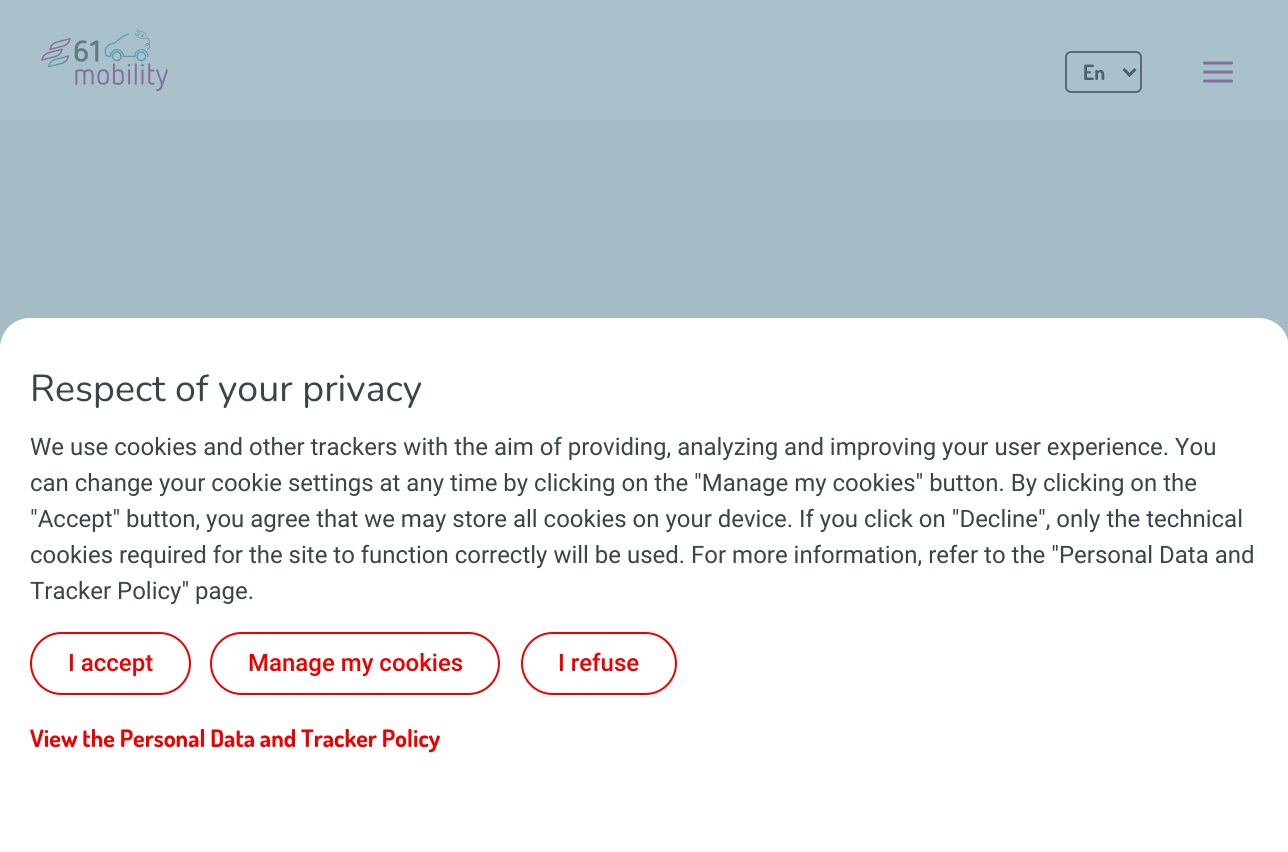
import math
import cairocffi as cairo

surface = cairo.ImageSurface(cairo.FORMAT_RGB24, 1288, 852)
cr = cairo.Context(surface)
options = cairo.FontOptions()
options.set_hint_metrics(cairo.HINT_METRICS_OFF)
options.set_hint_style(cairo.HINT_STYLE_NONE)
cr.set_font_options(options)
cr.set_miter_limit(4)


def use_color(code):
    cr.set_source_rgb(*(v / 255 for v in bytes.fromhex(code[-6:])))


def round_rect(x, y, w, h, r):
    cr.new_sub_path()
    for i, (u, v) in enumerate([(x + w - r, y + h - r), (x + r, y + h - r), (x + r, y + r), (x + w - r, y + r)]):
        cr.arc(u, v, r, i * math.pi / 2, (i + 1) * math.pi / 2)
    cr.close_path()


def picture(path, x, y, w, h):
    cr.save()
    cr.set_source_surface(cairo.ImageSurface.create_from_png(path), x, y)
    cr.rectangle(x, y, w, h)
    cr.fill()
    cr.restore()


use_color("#a9c1ca")
cr.paint()
picture("img1.png", 41, 29, 127, 63)
round_rect(1066, 52, 75, 40, 5)
use_color("#636480")
cr.stroke()
cr.new_path()
cr.move_to(1123.5, 69)
cr.line_to(1129.5, 75)
cr.line_to(1135.5, 69)
use_color("#4a626b")
cr.set_line_width(3)
cr.stroke()
cr.select_font_face("Dosis", cairo.FONT_SLANT_NORMAL, cairo.FONT_WEIGHT_BOLD)
cr.set_font_size(21)
cr.move_to(1083, 80)
cr.show_text("En")
picture("img2.png", 1203, 61, 30, 22)
use_color("#a4bcc5")
cr.rectangle(0, 120, 1288, 228)
cr.fill()
use_color("#ffffff")
cr.new_path()
cr.move_to(30, 318)
cr.line_to(1259, 318)
cr.curve_to(1275.5, 318, 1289, 331.5, 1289, 348)
cr.line_to(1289, 852)
cr.line_to(0, 852)
cr.line_to(0, 348)
cr.curve_to(0, 331.5, 13.5, 318, 30, 318)
cr.close_path()
cr.fill()
cr.select_font_face("Nunito ExtraLight")
cr.set_font_size(37.5)
use_color("#374649")
cr.move_to(30, 401)
cr.show_text("Respect of your privacy")
cr.select_font_face("Roboto")
cr.set_font_size(24)
cr.move_to(30, 455)
cr.show_text("We use cookies and other trackers with the aim of providing, analyzing and improving your user experience. You")
cr.move_to(30, 491)
cr.show_text("can change your cookie settings at any time by clicking on the \"Manage my cookies\" button. By clicking on the")
cr.move_to(30, 527)
cr.show_text("\"Accept\" button, you agree that we may store all cookies on your device. If you click on \"Decline\", only the technical")
cr.move_to(30, 563)
cr.show_text("cookies required for the site to function correctly will be used. For more information, refer to the \"Personal Data and")
cr.move_to(30, 599)
cr.show_text("Tracker Policy\" page.")
round_rect(31, 633, 159, 61, 30.5)
use_color("#ed0000")
cr.set_line_width(2)
cr.stroke()
cr.select_font_face("Roboto Medium")
cr.move_to(68, 671)
cr.show_text("I accept")
round_rect(211, 633, 288, 61, 30.5)
cr.stroke()
cr.move_to(248, 671)
cr.show_text("Manage my cookies")
round_rect(522, 633, 154, 61, 30.5)
cr.stroke()
cr.move_to(558, 671)
cr.show_text("I refuse")
cr.select_font_face("Dosis", cairo.FONT_SLANT_NORMAL, cairo.FONT_WEIGHT_BOLD)
cr.move_to(30, 747)
cr.show_text("View the Personal Data and Tracker Policy")
surface.write_to_png("result.png")
